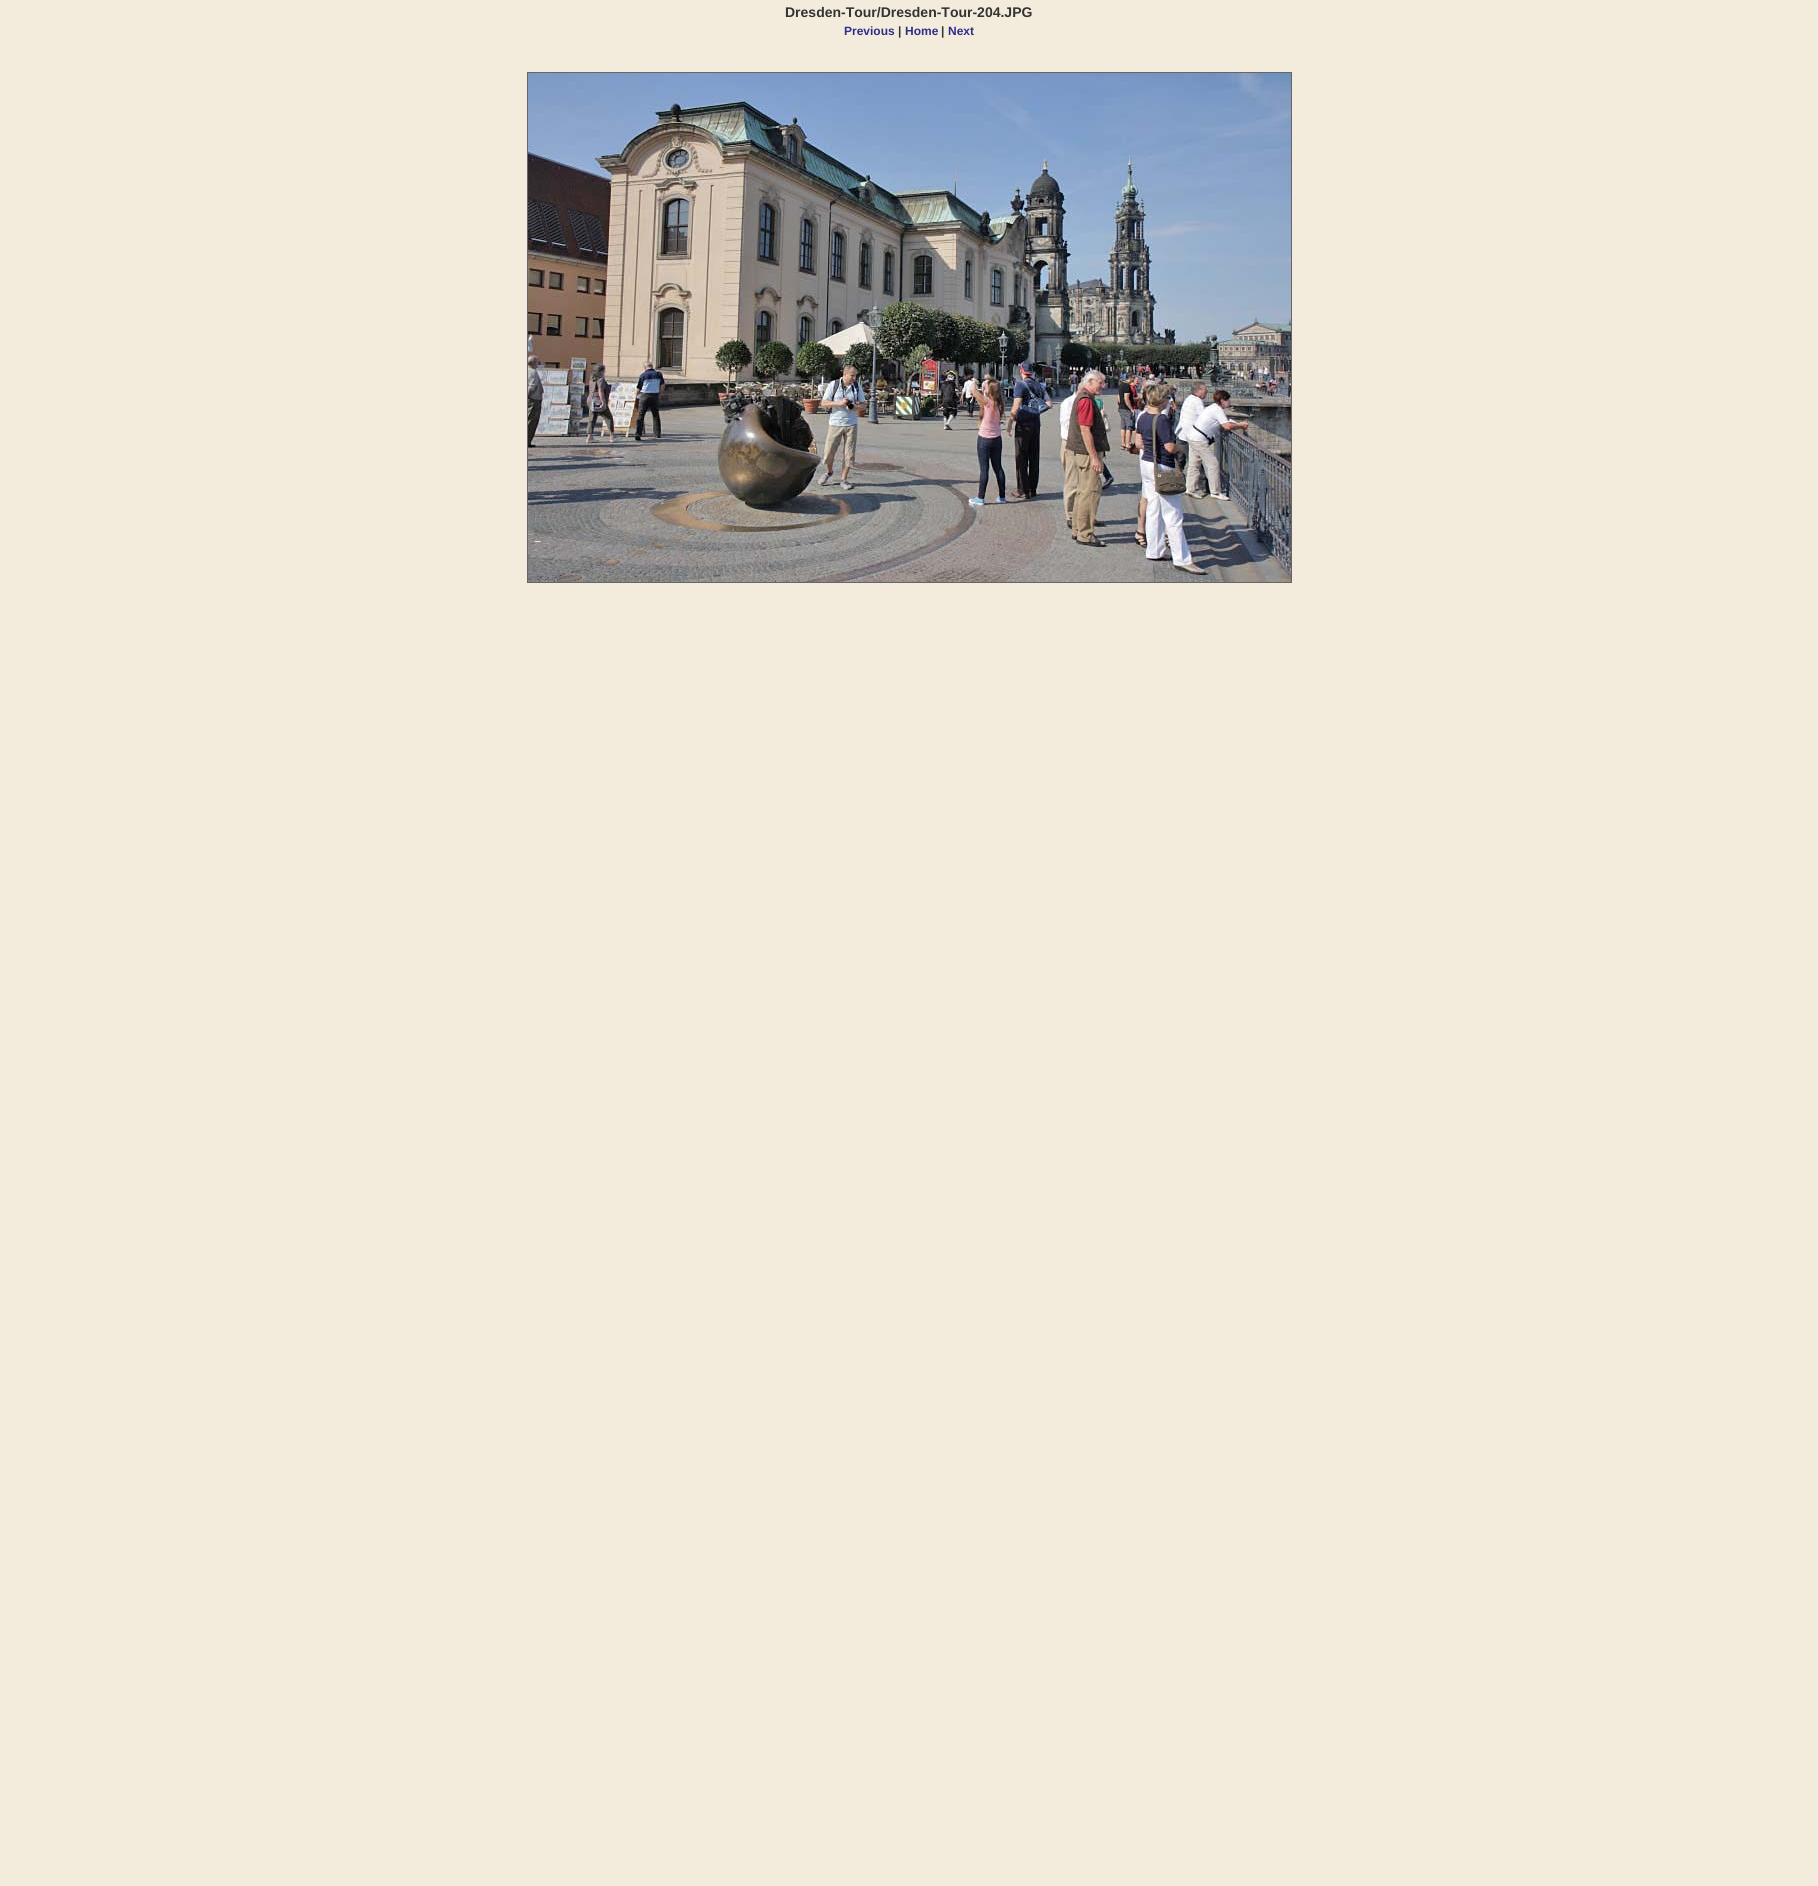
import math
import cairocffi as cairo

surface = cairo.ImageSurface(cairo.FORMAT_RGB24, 1818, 1886)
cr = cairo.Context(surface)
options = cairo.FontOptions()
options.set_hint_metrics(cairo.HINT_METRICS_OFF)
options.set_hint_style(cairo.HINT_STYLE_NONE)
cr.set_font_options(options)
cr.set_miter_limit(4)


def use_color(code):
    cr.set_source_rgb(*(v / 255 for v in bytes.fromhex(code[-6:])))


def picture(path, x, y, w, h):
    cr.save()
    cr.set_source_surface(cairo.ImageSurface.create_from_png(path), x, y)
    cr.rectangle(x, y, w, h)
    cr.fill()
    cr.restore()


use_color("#f3ecdd")
cr.paint()
cr.select_font_face("Liberation Sans", cairo.FONT_SLANT_NORMAL, cairo.FONT_WEIGHT_BOLD)
cr.set_font_size(14)
use_color("#333333")
cr.move_to(785, 17)
cr.show_text("Dresden-Tour/Dresden-Tour-204.JPG")
cr.set_font_size(12)
use_color("#2e2e8a")
cr.move_to(844, 35)
cr.show_text("Previous")
use_color("#333333")
cr.move_to(898, 35)
cr.show_text("|")
use_color("#2e2e8a")
cr.move_to(905, 35)
cr.show_text("Home")
use_color("#333333")
cr.move_to(941, 35)
cr.show_text("|")
use_color("#2e2e8a")
cr.move_to(948, 35)
cr.show_text("Next")
cr.rectangle(527.5, 72.5, 764, 510)
use_color("#666666")
cr.set_line_width(1)
cr.stroke()
picture("img1.png", 528, 73, 763, 509)
surface.write_to_png("result.png")
